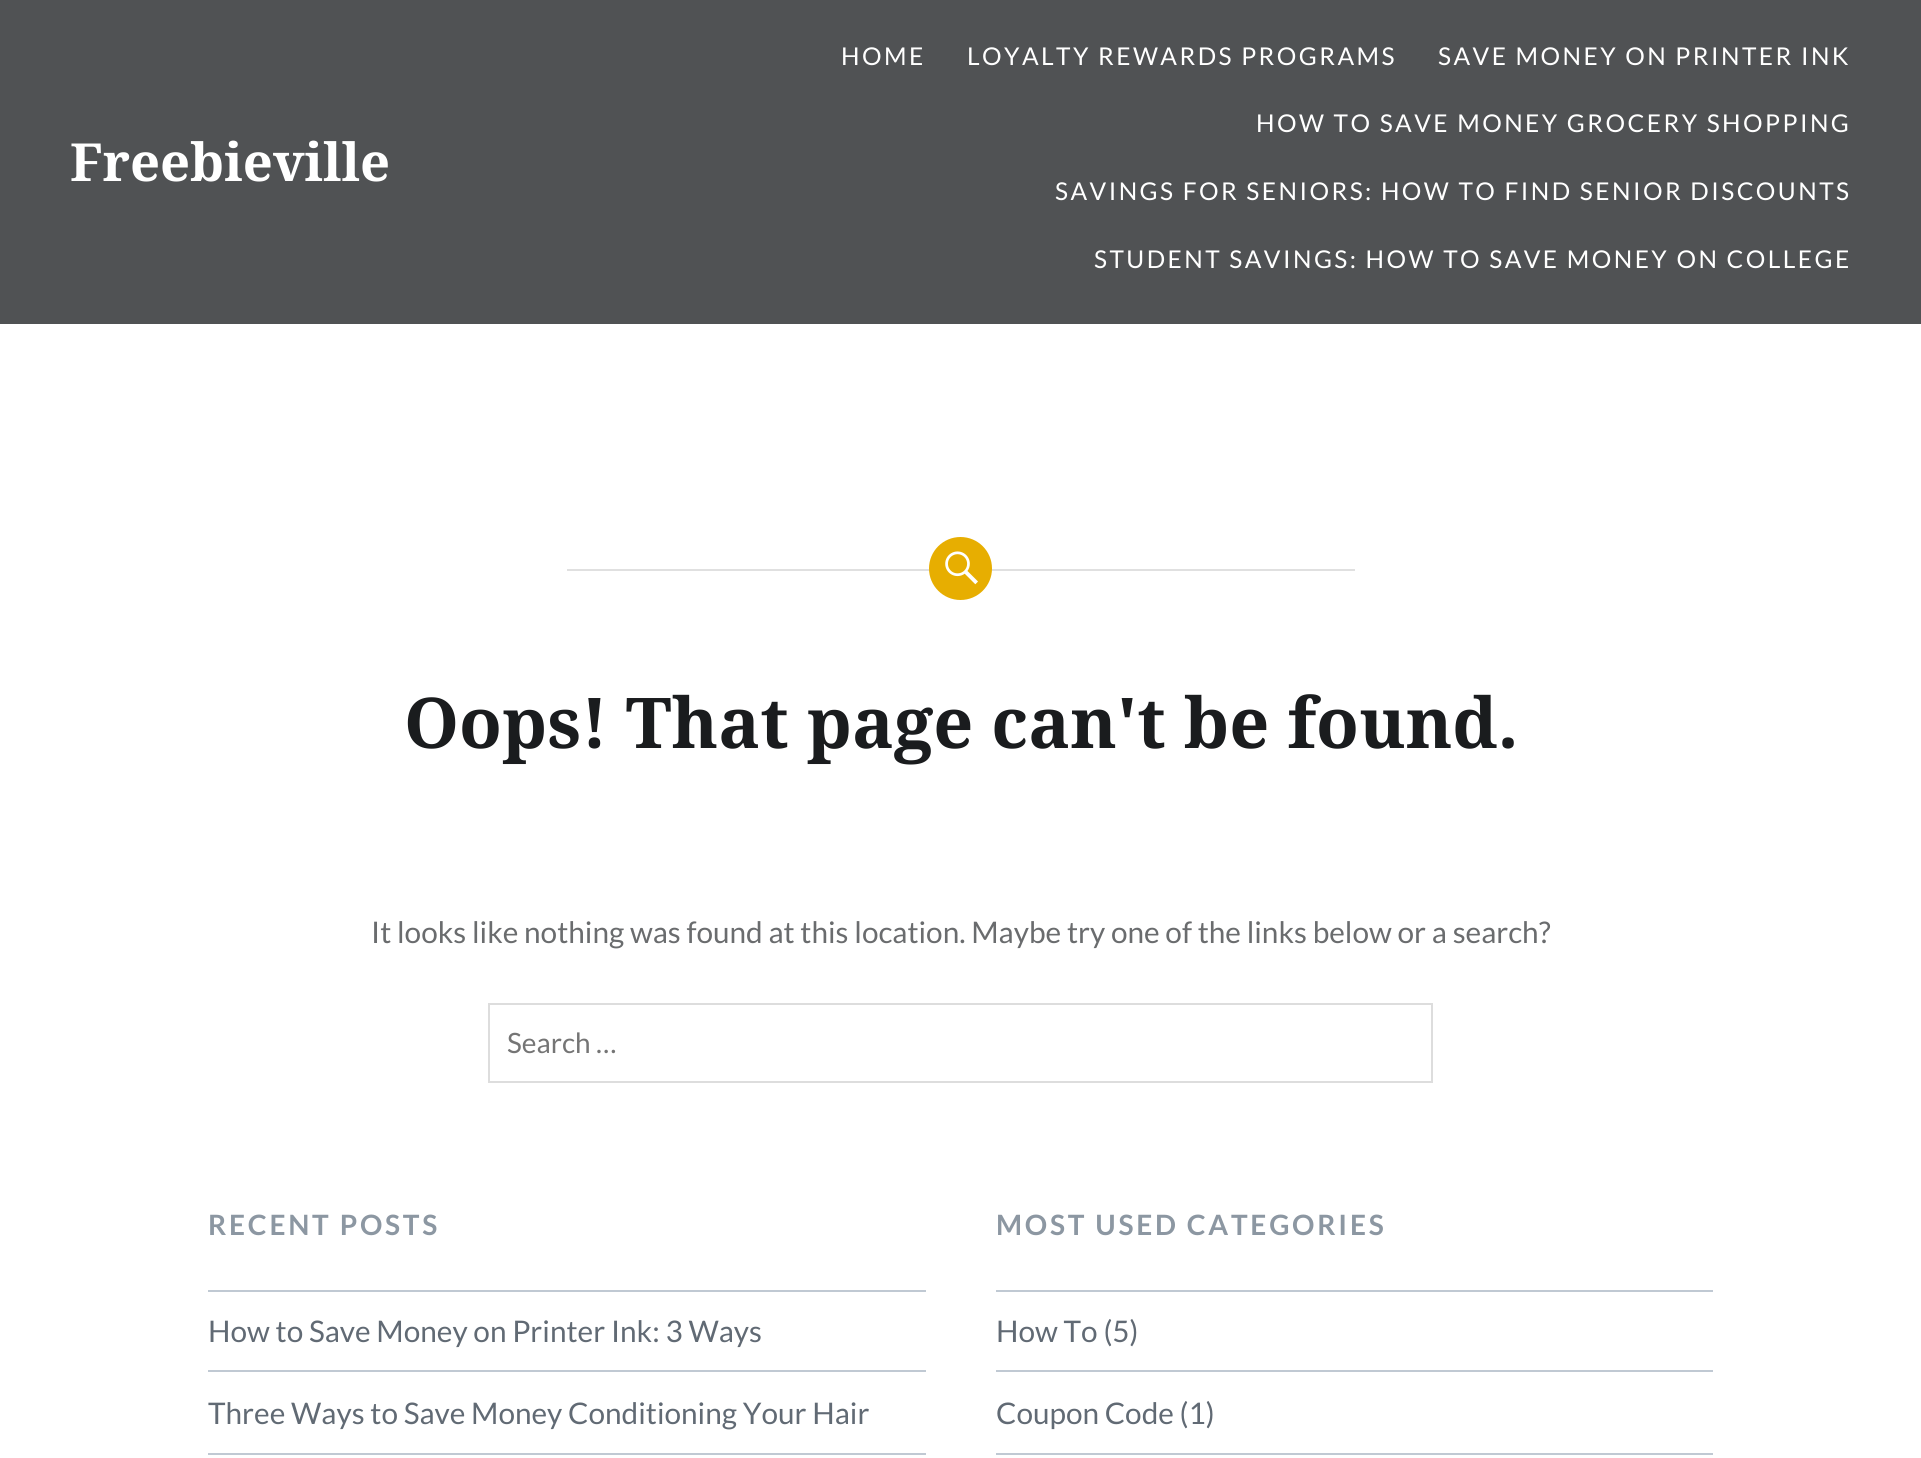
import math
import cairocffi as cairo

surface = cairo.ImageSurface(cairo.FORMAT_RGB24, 1921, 1458)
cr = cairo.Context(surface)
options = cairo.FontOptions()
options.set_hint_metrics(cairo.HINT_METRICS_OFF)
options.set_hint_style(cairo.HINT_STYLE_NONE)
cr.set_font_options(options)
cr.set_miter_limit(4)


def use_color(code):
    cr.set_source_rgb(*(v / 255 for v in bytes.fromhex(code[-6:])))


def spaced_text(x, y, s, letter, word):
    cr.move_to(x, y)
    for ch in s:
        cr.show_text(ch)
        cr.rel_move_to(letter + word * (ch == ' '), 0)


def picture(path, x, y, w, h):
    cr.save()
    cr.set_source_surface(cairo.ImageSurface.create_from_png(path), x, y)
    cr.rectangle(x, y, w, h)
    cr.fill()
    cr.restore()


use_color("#ffffff")
cr.paint()
use_color("#505254")
cr.rectangle(0, 0, 1921, 324)
cr.fill()
cr.select_font_face("Noto Serif", cairo.FONT_SLANT_NORMAL, cairo.FONT_WEIGHT_BOLD)
cr.set_font_size(52.5)
use_color("#ffffff")
cr.move_to(70, 181)
cr.show_text("Freebieville")
cr.select_font_face("Lato")
cr.set_font_size(24.5)
spaced_text(841, 65, "HOME", 2.45, 0)
spaced_text(967, 65, "LOYALTY REWARDS PROGRAMS", 2.45, 0)
spaced_text(1438, 65, "SAVE MONEY ON PRINTER INK", 2.45, 0)
spaced_text(1256, 132, "HOW TO SAVE MONEY GROCERY SHOPPING", 2.45, 0)
spaced_text(1055, 200, "SAVINGS FOR SENIORS: HOW TO FIND SENIOR DISCOUNTS", 2.45, 0)
spaced_text(1094, 268, "STUDENT SAVINGS: HOW TO SAVE MONEY ON COLLEGE", 2.45, 0)
use_color("#e0e0e0")
cr.rectangle(567, 569, 788, 2)
cr.fill()
use_color("#e7ae01")
cr.arc(960.5, 568.5, 31.5, 0, 2 * math.pi)
cr.fill()
picture("img1.png", 945, 551, 33, 34)
cr.select_font_face("Noto Serif", cairo.FONT_SLANT_NORMAL, cairo.FONT_WEIGHT_BOLD)
cr.set_font_size(70)
use_color("#1a1c1e")
cr.move_to(404, 748)
cr.show_text("Oops! That page can't be found.")
cr.select_font_face("Lato")
cr.set_font_size(29.75)
use_color("#6a6c6e")
cr.move_to(371, 943)
cr.show_text("It looks like nothing was found at this location. Maybe try one of the links below or a search?")
cr.rectangle(489, 1004, 943, 78)
use_color("#dddddd")
cr.stroke()
cr.set_font_size(28)
use_color("#757575")
cr.move_to(507, 1053)
cr.show_text("Search …")
cr.select_font_face("Lato", cairo.FONT_SLANT_NORMAL, cairo.FONT_WEIGHT_BOLD)
use_color("#8c97a2")
spaced_text(208, 1235, "RECENT POSTS", 2.75, 0)
use_color("#c0c9d3")
cr.rectangle(208, 1290, 718, 2)
cr.fill()
cr.rectangle(208, 1370, 718, 2)
cr.fill()
cr.select_font_face("Lato")
cr.set_font_size(29.75)
use_color("#616a74")
cr.move_to(208, 1342)
cr.show_text("How to Save Money on Printer Ink: 3 Ways")
use_color("#c0c9d3")
cr.rectangle(208, 1453, 718, 2)
cr.fill()
use_color("#616a74")
cr.move_to(208, 1424)
cr.show_text("Three Ways to Save Money Conditioning Your Hair")
cr.select_font_face("Lato", cairo.FONT_SLANT_NORMAL, cairo.FONT_WEIGHT_BOLD)
cr.set_font_size(28)
use_color("#8c97a2")
spaced_text(996, 1235, "MOST USED CATEGORIES", 2.75, 0)
use_color("#c0c9d3")
cr.rectangle(996, 1290, 717, 2)
cr.fill()
cr.rectangle(996, 1370, 717, 2)
cr.fill()
cr.select_font_face("Lato")
cr.set_font_size(29.75)
use_color("#616a74")
cr.move_to(996, 1342)
cr.show_text("How To (5)")
use_color("#c0c9d3")
cr.rectangle(996, 1453, 717, 2)
cr.fill()
use_color("#616a74")
cr.move_to(996, 1424)
cr.show_text("Coupon Code (1)")
surface.write_to_png("result.png")
